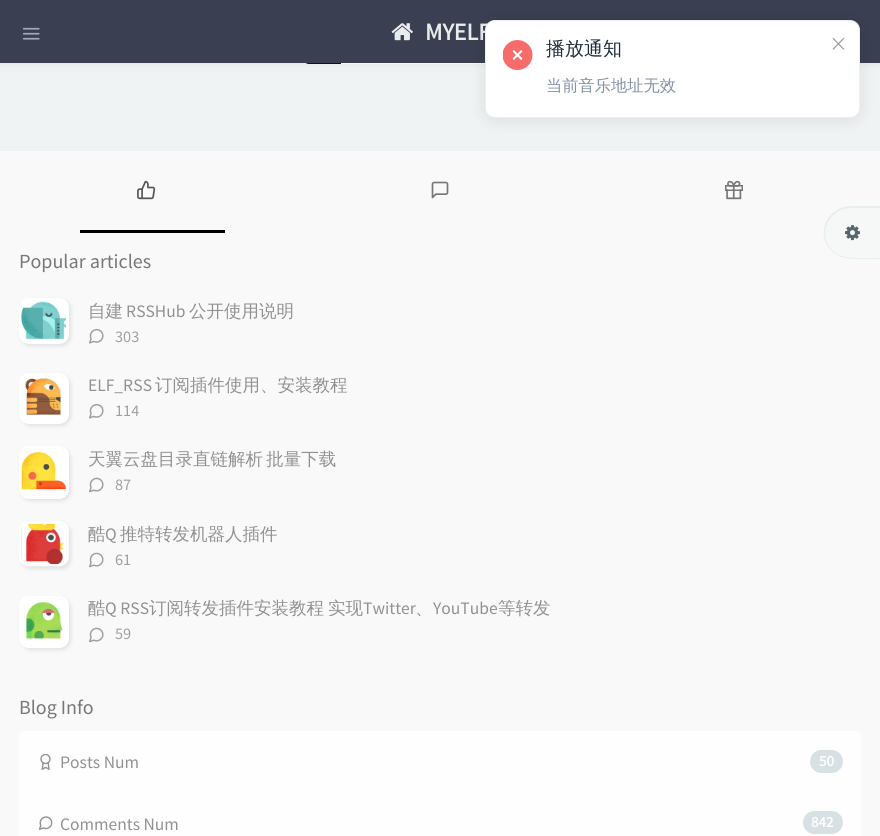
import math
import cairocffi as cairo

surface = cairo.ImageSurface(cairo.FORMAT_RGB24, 880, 836)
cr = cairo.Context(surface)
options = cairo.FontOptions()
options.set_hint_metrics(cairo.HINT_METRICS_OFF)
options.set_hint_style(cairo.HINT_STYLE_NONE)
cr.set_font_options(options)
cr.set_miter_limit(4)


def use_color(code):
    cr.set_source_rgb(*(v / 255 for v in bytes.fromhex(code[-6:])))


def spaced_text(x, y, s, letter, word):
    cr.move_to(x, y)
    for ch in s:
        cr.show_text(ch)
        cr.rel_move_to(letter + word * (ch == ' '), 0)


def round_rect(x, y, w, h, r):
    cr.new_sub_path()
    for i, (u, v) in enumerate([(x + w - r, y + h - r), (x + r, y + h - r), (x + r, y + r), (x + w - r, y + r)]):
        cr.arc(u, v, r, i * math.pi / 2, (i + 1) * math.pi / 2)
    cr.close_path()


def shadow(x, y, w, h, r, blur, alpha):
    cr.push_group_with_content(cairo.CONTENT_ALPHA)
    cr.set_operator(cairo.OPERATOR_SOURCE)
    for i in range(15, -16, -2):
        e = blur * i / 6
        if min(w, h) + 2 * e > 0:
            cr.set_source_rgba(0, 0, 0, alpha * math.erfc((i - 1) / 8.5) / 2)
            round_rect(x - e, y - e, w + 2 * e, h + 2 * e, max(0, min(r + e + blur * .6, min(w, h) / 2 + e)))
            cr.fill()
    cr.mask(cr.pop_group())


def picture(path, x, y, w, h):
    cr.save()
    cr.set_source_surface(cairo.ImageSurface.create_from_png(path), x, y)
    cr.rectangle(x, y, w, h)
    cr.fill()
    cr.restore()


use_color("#f0f3f4")
cr.paint()
use_color("#111111")
cr.new_path()
cr.move_to(309, 28)
cr.line_to(341, 28)
cr.line_to(341, 64)
cr.line_to(309, 64)
cr.curve_to(306, 64, 304, 62, 304, 59)
cr.line_to(304, 33)
cr.curve_to(304, 30, 306, 28, 309, 28)
cr.close_path()
cr.fill()
use_color("#ffffff")
cr.rectangle(341, 63, 144, 1)
cr.fill()
use_color("#000000")
shadow(-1, 0, 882, 65, 0, 3, 0.05)
use_color("#3a3f51")
cr.rectangle(0, 0, 880, 63)
cr.fill()
picture("img1.png", 22, 27, 18, 13)
picture("img2.png", 391, 23, 22, 18)
cr.select_font_face("Source Sans Pro", cairo.FONT_SLANT_NORMAL, cairo.FONT_WEIGHT_BOLD)
cr.set_font_size(24)
use_color("#eaebed")
cr.move_to(425, 40)
cr.show_text("MYELF")
use_color("#f9f9f9")
cr.rectangle(0, 151, 880, 685)
cr.fill()
picture("img3.png", 137, 180, 19, 20)
picture("img4.png", 431, 181, 18, 18)
picture("img5.png", 725, 180, 18, 20)
use_color("#000000")
cr.rectangle(80, 230, 145, 3)
cr.fill()
cr.select_font_face("Source Sans Pro")
cr.set_font_size(20)
use_color("#777777")
cr.move_to(19, 268)
cr.show_text("Popular articles")
use_color("#e1e1e1")
shadow(21, 300, 50, 46, 9, 2, 1)
round_rect(20.5, 299.5, 47, 43, 8.5)
use_color("#ffffff")
cr.set_line_width(3)
cr.stroke()
picture("img6.png", 21, 301, 46, 40)
cr.select_font_face("WenQuanYi Zen Hei Medium")
cr.set_font_size(17.5)
use_color("#919191")
cr.move_to(88, 317)
cr.show_text("自建")
cr.select_font_face("Source Sans Pro")
cr.move_to(126, 317)
cr.show_text("RSSHub")
cr.select_font_face("WenQuanYi Zen Hei Medium")
cr.move_to(189, 317)
cr.show_text("公开使用说明")
picture("img7.png", 89, 329, 15, 15)
cr.select_font_face("Source Sans Pro")
cr.set_font_size(16.25)
use_color("#a0a0a0")
cr.move_to(115, 342)
cr.show_text("303")
use_color("#e1e1e1")
shadow(21, 375, 50, 51, 10, 2, 1)
round_rect(20.5, 374.5, 47, 48, 8.5)
use_color("#ffffff")
cr.stroke()
picture("img8.png", 22, 376, 44, 45)
cr.set_font_size(17.5)
use_color("#919191")
cr.move_to(88, 391)
cr.show_text("ELF_RSS")
cr.select_font_face("WenQuanYi Zen Hei Medium")
cr.move_to(155, 391)
cr.show_text("订阅插件使用、安装教程")
picture("img7.png", 89, 404, 15, 15)
cr.select_font_face("Source Sans Pro")
cr.set_font_size(16.25)
use_color("#a0a0a0")
cr.move_to(115, 416)
cr.show_text("114")
use_color("#e1e1e1")
shadow(21, 449, 50, 52, 10, 2, 1)
round_rect(20.5, 447.5, 47, 50, 8.5)
use_color("#ffffff")
cr.stroke()
picture("img9.png", 21, 449, 46, 47)
cr.select_font_face("WenQuanYi Zen Hei Medium")
cr.set_font_size(17.5)
use_color("#919191")
spaced_text(88, 465, "天翼云盘目录直链解析 批量下载", 0, -2)
picture("img10.png", 89, 477, 15, 16)
cr.select_font_face("Source Sans Pro")
cr.set_font_size(16.25)
use_color("#a0a0a0")
cr.move_to(115, 490)
cr.show_text("87")
use_color("#e1e1e1")
shadow(21, 524, 50, 45, 9, 2, 1)
cr.new_path()
cr.move_to(29, 522.5)
cr.line_to(59, 522.5)
cr.curve_to(63.5, 522.5, 67.5, 526, 67.5, 530)
cr.line_to(67.5, 557)
cr.curve_to(67.5, 561.5, 63.5, 565, 59, 565)
cr.line_to(29, 565)
cr.curve_to(24, 565, 20, 561.5, 20, 557)
cr.line_to(20, 530)
cr.curve_to(20, 526, 24, 522.5, 29, 522.5)
cr.close_path()
use_color("#ffffff")
cr.set_line_width(2.5)
cr.stroke()
picture("img11.png", 22, 524, 44, 40)
cr.select_font_face("WenQuanYi Zen Hei Medium")
cr.set_font_size(17.5)
use_color("#919191")
cr.move_to(88, 540)
cr.show_text("酷")
cr.select_font_face("Source Sans Pro")
cr.move_to(105, 540)
cr.show_text("Q")
cr.select_font_face("WenQuanYi Zen Hei Medium")
cr.move_to(120, 540)
cr.show_text("推特转发机器人插件")
picture("img10.png", 89, 552, 15, 16)
cr.select_font_face("Source Sans Pro")
cr.set_font_size(16.25)
use_color("#a0a0a0")
cr.move_to(115, 565)
cr.show_text("61")
use_color("#e1e1e1")
shadow(21, 599, 50, 51, 10, 2, 1)
round_rect(20.5, 597.5, 47, 49, 8.5)
use_color("#ffffff")
cr.set_line_width(3)
cr.stroke()
picture("img12.png", 22, 599, 44, 46)
cr.select_font_face("WenQuanYi Zen Hei Medium")
cr.set_font_size(17.5)
use_color("#919191")
cr.move_to(88, 614)
cr.show_text("酷")
cr.select_font_face("Source Sans Pro")
cr.move_to(105, 614)
cr.show_text("Q RSS")
cr.select_font_face("WenQuanYi Zen Hei Medium")
cr.move_to(149, 614)
cr.show_text("订阅转发插件安装教程")
cr.move_to(328, 614)
cr.show_text("实现")
cr.select_font_face("Source Sans Pro")
cr.move_to(363, 614)
cr.show_text("Twitter")
cr.select_font_face("WenQuanYi Zen Hei Medium")
cr.move_to(415, 614)
cr.show_text("、")
cr.select_font_face("Source Sans Pro")
cr.move_to(433, 614)
cr.show_text("YouTube")
cr.select_font_face("WenQuanYi Zen Hei Medium")
cr.move_to(498, 614)
cr.show_text("等转发")
picture("img10.png", 89, 627, 15, 16)
cr.select_font_face("Source Sans Pro")
cr.set_font_size(16.25)
use_color("#a0a0a0")
cr.move_to(115, 639)
cr.show_text("59")
cr.set_font_size(20)
use_color("#777777")
cr.move_to(19, 714)
cr.show_text("Blog Info")
use_color("#fefefe")
cr.new_path()
cr.move_to(24, 731)
cr.line_to(856, 731)
cr.curve_to(859, 731, 861, 733, 861, 736)
cr.line_to(861, 794)
cr.line_to(19, 794)
cr.line_to(19, 736)
cr.curve_to(19, 733, 21, 731, 24, 731)
cr.close_path()
cr.fill()
picture("img13.png", 40, 754, 11, 16)
cr.set_font_size(17.5)
use_color("#919191")
cr.move_to(60, 768)
cr.show_text("Posts Num")
use_color("#d7e0e3")
round_rect(810, 750, 33, 23, 11.5)
cr.fill()
cr.select_font_face("Source Sans Pro", cairo.FONT_SLANT_NORMAL, cairo.FONT_WEIGHT_BOLD)
cr.set_font_size(15)
use_color("#fefefe")
cr.move_to(819, 766)
cr.show_text("50")
cr.set_source_rgba(1, 1, 1, 0.8)
cr.rectangle(19, 794, 842, 42)
cr.fill()
picture("img14.png", 38, 816, 15, 14)
cr.select_font_face("Source Sans Pro")
cr.set_font_size(17.5)
use_color("#919191")
cr.move_to(60, 830)
cr.show_text("Comments Num")
use_color("#d7e0e3")
round_rect(803, 811, 40, 23, 11.5)
cr.fill()
cr.select_font_face("Source Sans Pro", cairo.FONT_SLANT_NORMAL, cairo.FONT_WEIGHT_BOLD)
cr.set_font_size(15)
use_color("#fefefe")
cr.move_to(811, 827)
cr.show_text("842")
use_color("#000000")
shadow(485, 23, 375, 97, 10, 7.5, 0.1)
use_color("#ffffff")
round_rect(485.5, 20.5, 374, 97, 9.5)
cr.fill_preserve()
use_color("#ebeef5")
cr.set_line_width(1)
cr.stroke()
picture("img15.png", 503, 40, 30, 30)
cr.select_font_face("WenQuanYi Zen Hei Medium")
cr.set_font_size(19)
use_color("#1f2d3d")
cr.move_to(546, 55)
cr.show_text("播放通知")
cr.select_font_face("Source Sans Pro Light")
cr.set_font_size(31)
use_color("#999999")
cr.move_to(831, 54)
cr.show_text("×")
cr.select_font_face("WenQuanYi Zen Hei Medium")
cr.set_font_size(16.25)
use_color("#8391a5")
cr.move_to(546, 91)
cr.show_text("当前音乐地址无效")
use_color("#f6f8f8")
cr.new_path()
cr.move_to(852, 206)
cr.line_to(880, 206)
cr.line_to(880, 259)
cr.curve_to(870, 259, 850, 260, 841, 257)
cr.curve_to(812, 245, 822, 206, 852, 206)
cr.close_path()
cr.fill()
use_color("#e8edee")
cr.set_fill_rule(cairo.FILL_RULE_EVEN_ODD)
cr.new_path()
cr.move_to(852, 206)
cr.line_to(880, 206)
cr.line_to(880, 259)
cr.curve_to(870, 259, 850, 260, 841, 257)
cr.curve_to(812, 245, 822, 206, 852, 206)
cr.close_path()
cr.move_to(852, 208)
cr.line_to(880, 208)
cr.line_to(880, 258)
cr.curve_to(870, 258, 850, 259, 841, 256)
cr.curve_to(814, 245, 824, 208, 852, 208)
cr.close_path()
cr.fill()
picture("img16.png", 845, 225, 15, 16)
surface.write_to_png("result.png")
